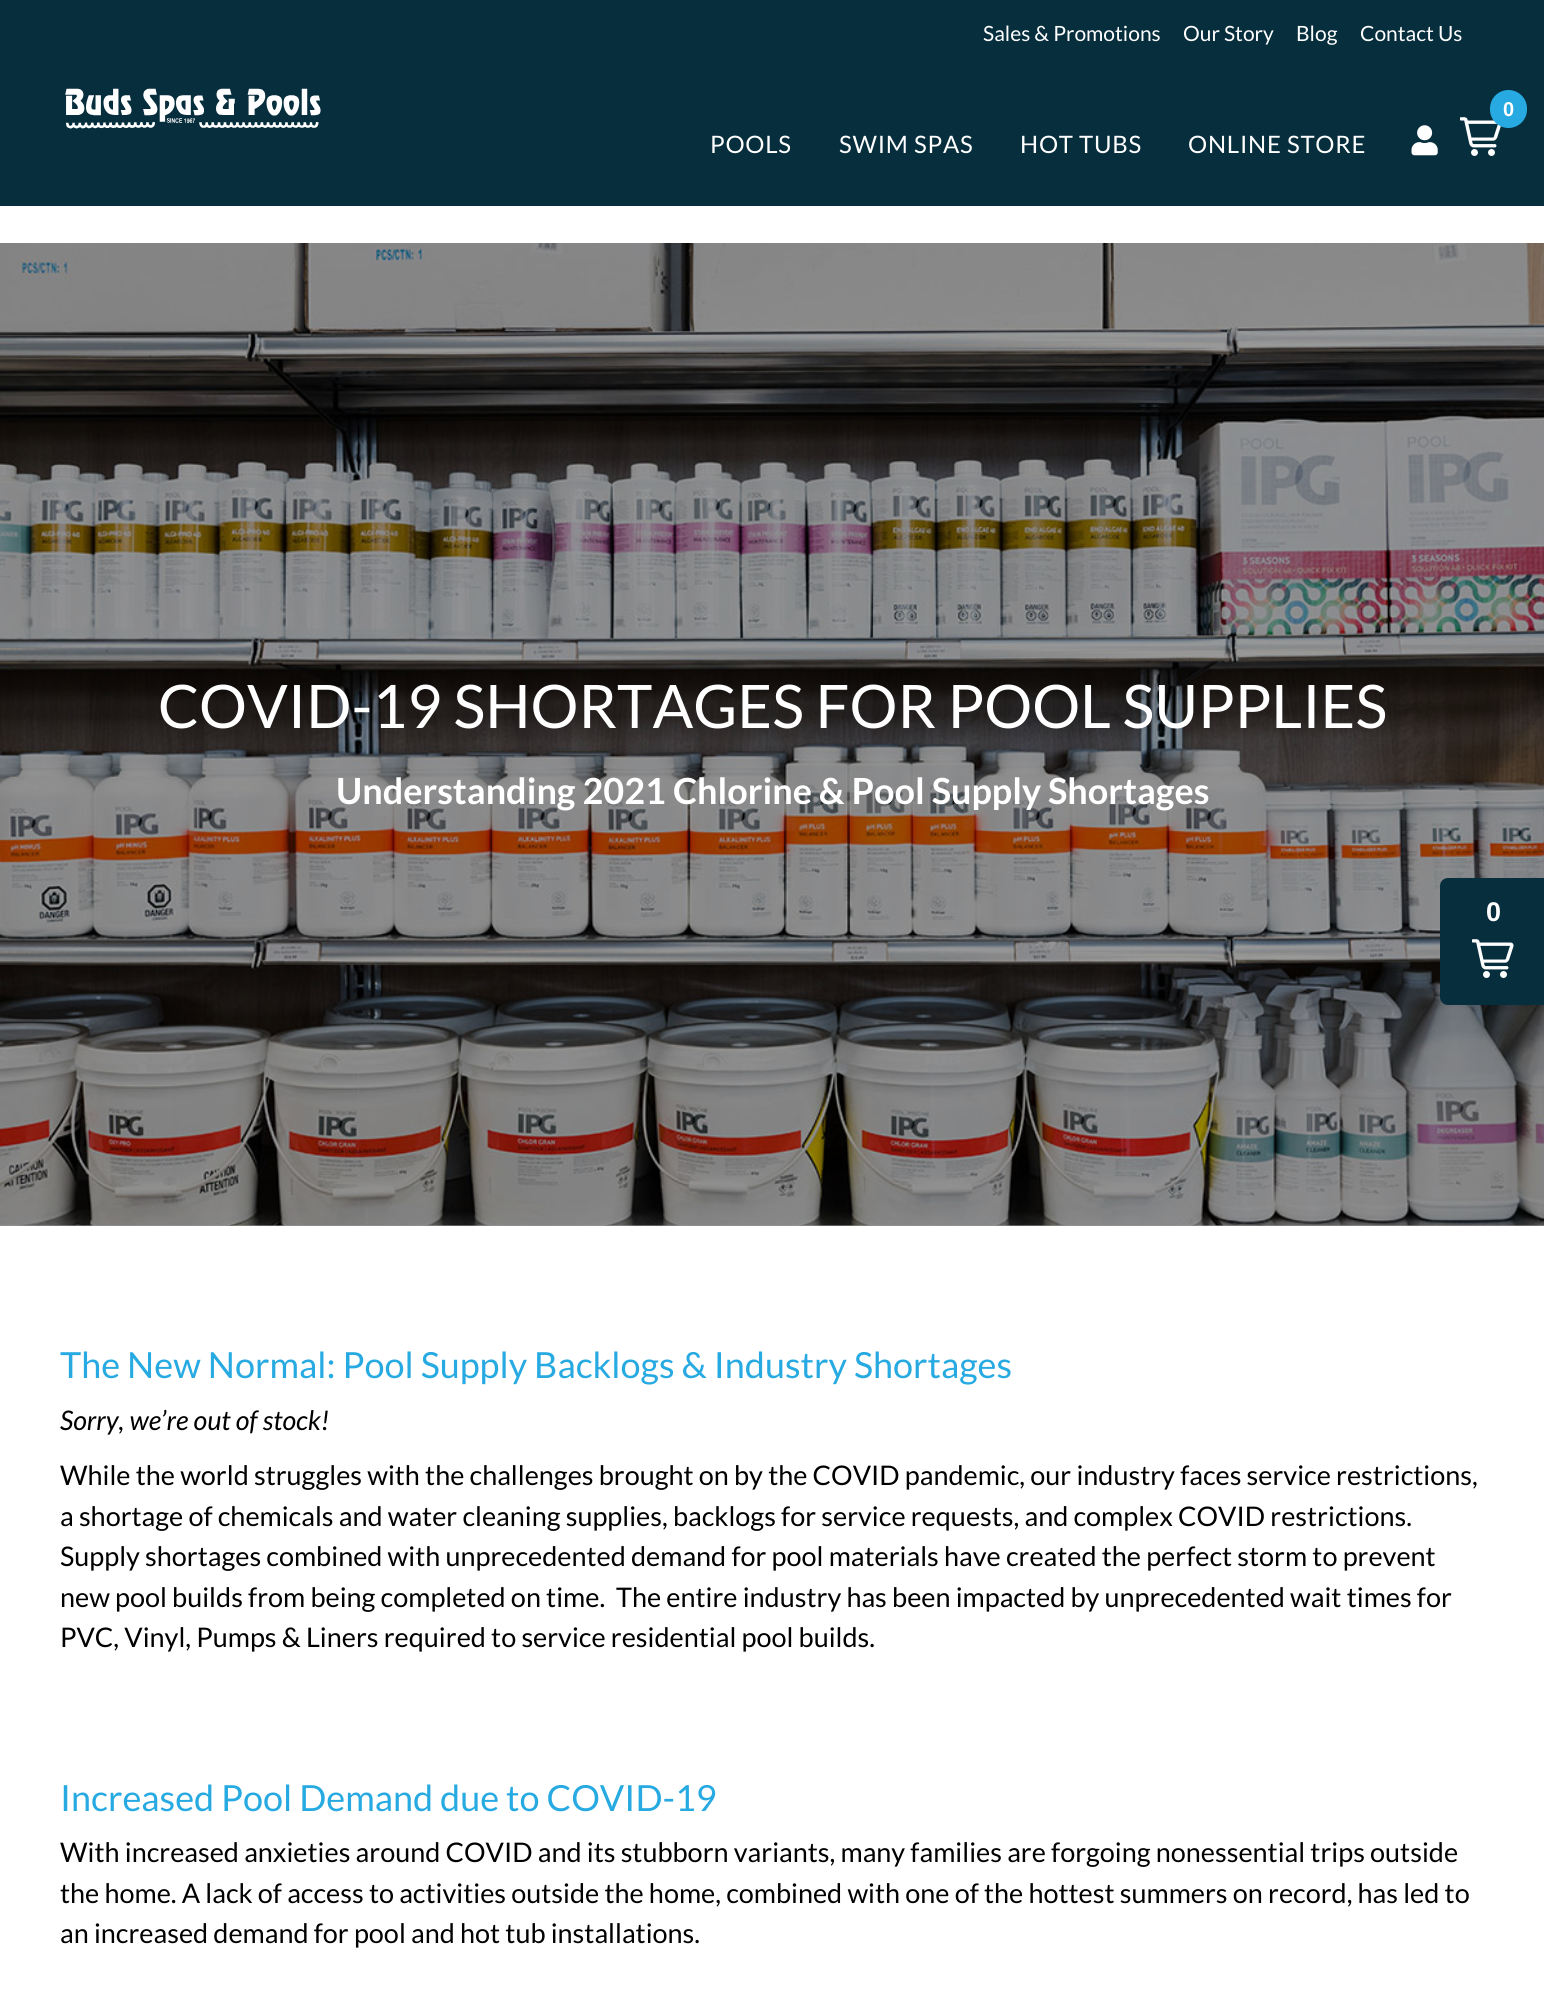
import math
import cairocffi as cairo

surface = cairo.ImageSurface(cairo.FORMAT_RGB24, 1544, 1993)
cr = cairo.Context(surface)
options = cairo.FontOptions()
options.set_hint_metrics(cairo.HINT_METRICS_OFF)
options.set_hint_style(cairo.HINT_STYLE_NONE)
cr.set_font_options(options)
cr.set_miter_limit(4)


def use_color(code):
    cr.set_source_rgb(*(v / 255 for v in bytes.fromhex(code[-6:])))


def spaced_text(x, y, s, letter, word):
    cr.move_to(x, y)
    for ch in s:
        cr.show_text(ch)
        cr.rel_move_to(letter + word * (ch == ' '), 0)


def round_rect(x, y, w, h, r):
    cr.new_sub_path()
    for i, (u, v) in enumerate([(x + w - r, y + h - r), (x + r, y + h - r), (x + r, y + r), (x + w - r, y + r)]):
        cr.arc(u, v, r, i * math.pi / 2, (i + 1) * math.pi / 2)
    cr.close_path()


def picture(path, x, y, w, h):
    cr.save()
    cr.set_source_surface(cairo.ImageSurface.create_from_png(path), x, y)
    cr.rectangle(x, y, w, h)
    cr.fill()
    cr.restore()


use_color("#ffffff")
cr.paint()
use_color("#999999")
cr.rectangle(0, 1225, 1544, 1)
cr.fill()
use_color("#072e3d")
cr.rectangle(0, 0, 1544, 206)
cr.fill()
cr.select_font_face("Lato")
cr.set_font_size(21)
use_color("#ffffff")
cr.move_to(983, 41)
cr.show_text("Sales & Promotions")
cr.move_to(1183, 41)
cr.show_text("Our Story")
cr.move_to(1296, 41)
cr.show_text("Blog")
cr.move_to(1360, 41)
cr.show_text("Contact Us")
picture("img1.png", 65, 88, 256, 41)
picture("img2.png", 1460, 117, 41, 39)
use_color("#27aae1")
round_rect(1490, 90, 37, 38, 18.5)
cr.fill()
cr.select_font_face("Liberation Sans", cairo.FONT_SLANT_NORMAL, cairo.FONT_WEIGHT_BOLD)
cr.set_font_size(20)
use_color("#ffffff")
cr.move_to(1503, 116)
cr.show_text("0")
picture("img3.png", 1411, 125, 27, 31)
cr.select_font_face("Lato")
cr.set_font_size(24)
spaced_text(710, 153, "POOLS", 0.75, 0)
spaced_text(839, 153, "SWIM SPAS", 0.75, 0)
spaced_text(1020, 153, "HOT TUBS", 0.75, 0)
spaced_text(1188, 153, "ONLINE STORE", 0.75, 0)
picture("img4.png", 0, 243, 1544, 983)
cr.set_font_size(60)
cr.move_to(158, 728)
cr.show_text("COVID-19 SHORTAGES FOR POOL SUPPLIES")
cr.select_font_face("Lato", cairo.FONT_SLANT_NORMAL, cairo.FONT_WEIGHT_BOLD)
cr.set_font_size(36)
cr.move_to(336, 804)
cr.show_text("Understanding 2021 Chlorine & Pool Supply Shortages")
cr.select_font_face("Lato")
use_color("#27aae1")
cr.move_to(60, 1378)
cr.show_text("The New Normal: Pool Supply Backlogs & Industry Shortages")
cr.select_font_face("Lato", cairo.FONT_SLANT_ITALIC)
cr.set_font_size(27)
use_color("#000000")
cr.move_to(60, 1430)
cr.show_text("Sorry, we’re out of stock!")
cr.select_font_face("Lato")
cr.move_to(60, 1485)
cr.show_text("While the world struggles with the challenges brought on by the COVID pandemic, our industry faces service restrictions,")
cr.move_to(60, 1526)
cr.show_text("a shortage of chemicals and water cleaning supplies, backlogs for service requests, and complex COVID restrictions.")
cr.move_to(60, 1566)
cr.show_text("Supply shortages combined with unprecedented demand for pool materials have created the perfect storm to prevent")
cr.move_to(60, 1607)
cr.show_text("new pool builds from being completed on time.")
cr.move_to(616, 1607)
cr.show_text("The entire industry has been impacted by unprecedented wait times for")
cr.move_to(60, 1647)
cr.show_text("PVC, Vinyl, Pumps & Liners required to service residential pool builds.")
cr.set_font_size(36)
use_color("#27aae1")
cr.move_to(60, 1811)
cr.show_text("Increased Pool Demand due to COVID-19")
cr.set_font_size(27)
use_color("#000000")
cr.move_to(60, 1862)
cr.show_text("With increased anxieties around COVID and its stubborn variants, many families are forgoing nonessential trips outside")
cr.move_to(60, 1903)
cr.show_text("the home. A lack of access to activities outside the home, combined with one of the hottest summers on record, has led to")
cr.move_to(60, 1943)
cr.show_text("an increased demand for pool and hot tub installations.")
use_color("#072e3d")
cr.new_path()
cr.move_to(1448, 878)
cr.line_to(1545, 878)
cr.line_to(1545, 1005)
cr.line_to(1448, 1005)
cr.curve_to(1443.5, 1005, 1440, 1001.5, 1440, 997)
cr.line_to(1440, 886)
cr.curve_to(1440, 881.5, 1443.5, 878, 1448, 878)
cr.close_path()
cr.fill()
cr.select_font_face("Liberation Sans", cairo.FONT_SLANT_NORMAL, cairo.FONT_WEIGHT_BOLD)
use_color("#ffffff")
cr.move_to(1486, 921)
cr.show_text("0")
picture("img5.png", 1472, 939, 42, 39)
surface.write_to_png("result.png")
